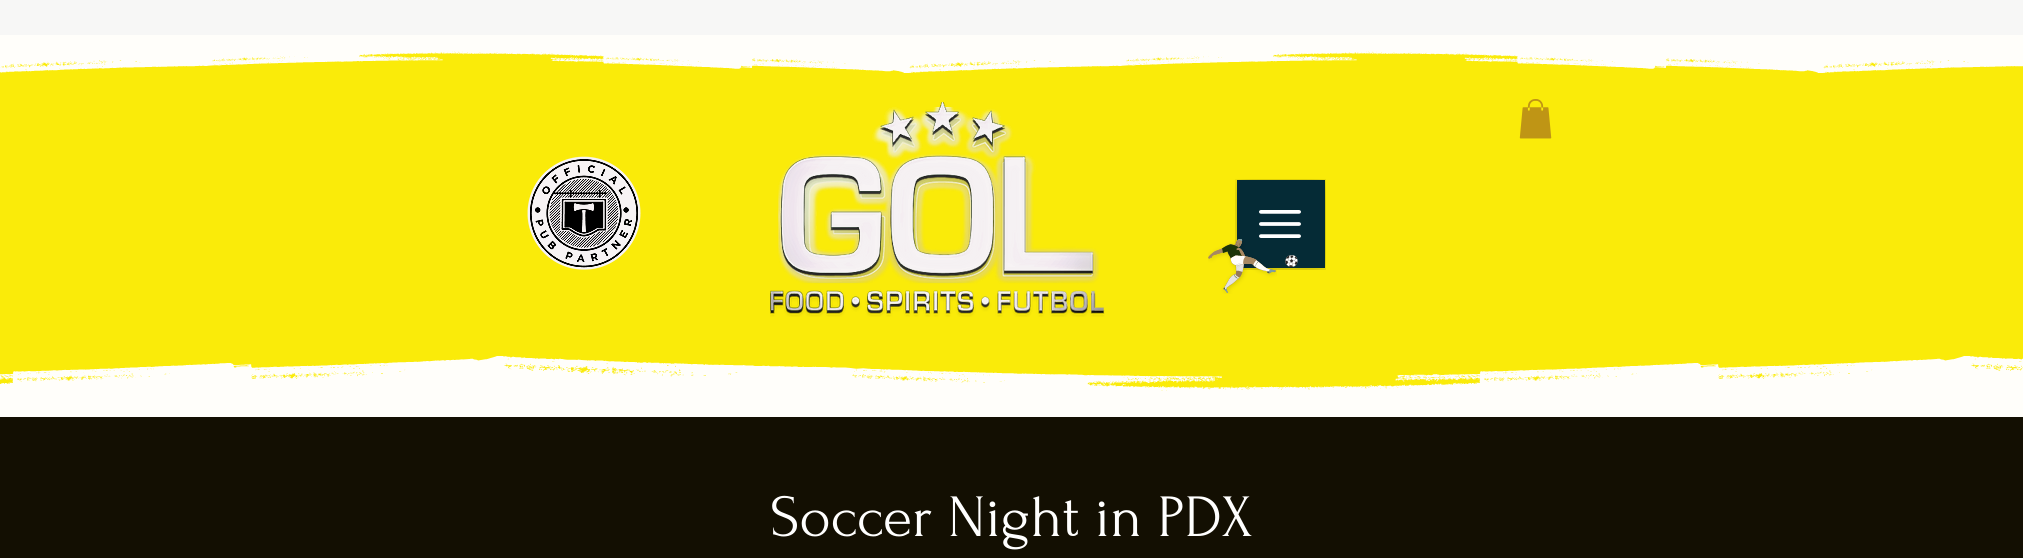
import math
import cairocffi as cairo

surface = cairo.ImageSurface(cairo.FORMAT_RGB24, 2023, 558)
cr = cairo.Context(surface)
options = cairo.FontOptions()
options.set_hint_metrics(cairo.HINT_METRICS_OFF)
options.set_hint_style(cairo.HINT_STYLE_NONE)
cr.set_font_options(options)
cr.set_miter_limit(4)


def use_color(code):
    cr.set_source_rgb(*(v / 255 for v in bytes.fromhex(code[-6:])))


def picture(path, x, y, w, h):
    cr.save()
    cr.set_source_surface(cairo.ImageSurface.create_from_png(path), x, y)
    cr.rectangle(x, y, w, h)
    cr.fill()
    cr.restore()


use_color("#f7f7f6")
cr.paint()
use_color("#faeb09")
cr.rectangle(0, 51, 2023, 340)
cr.fill()
picture("img1.png", 0, 35, 2023, 38)
picture("img6.png", 778, 107, 321, 177)
picture("img4.png", 770, 103, 335, 214)
picture("img2.png", 770, 102, 335, 212)
picture("img3.png", 1519, 99, 33, 40)
picture("img5.png", 527, 156, 114, 114)
picture("img7.png", 1235, 179, 91, 91)
picture("img8.png", 1259, 210, 42, 28)
picture("img9.png", 1208, 239, 69, 55)
picture("img10.png", 1285, 255, 13, 12)
picture("img11.png", 0, 356, 2023, 61)
use_color("#130f02")
cr.rectangle(0, 417, 2023, 141)
cr.fill()
cr.select_font_face("Forum")
cr.set_font_size(60)
use_color("#ffffff")
cr.move_to(770, 536)
cr.show_text("Soccer Night in PDX")
surface.write_to_png("result.png")
